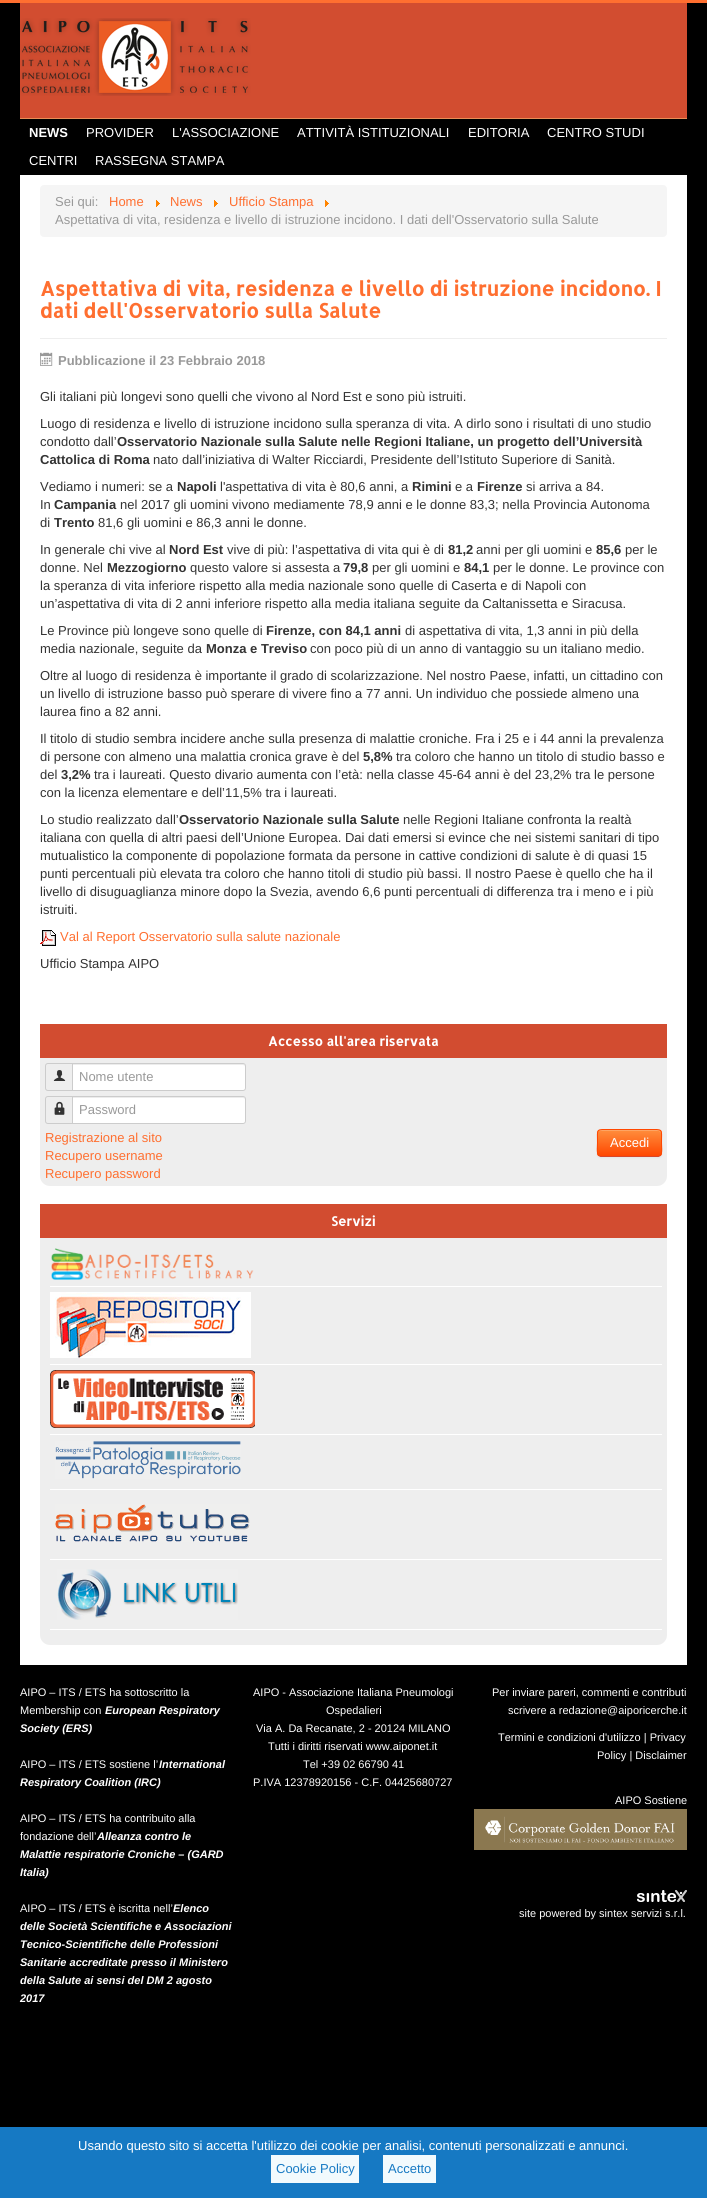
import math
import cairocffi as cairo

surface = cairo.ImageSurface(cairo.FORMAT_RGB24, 707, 2198)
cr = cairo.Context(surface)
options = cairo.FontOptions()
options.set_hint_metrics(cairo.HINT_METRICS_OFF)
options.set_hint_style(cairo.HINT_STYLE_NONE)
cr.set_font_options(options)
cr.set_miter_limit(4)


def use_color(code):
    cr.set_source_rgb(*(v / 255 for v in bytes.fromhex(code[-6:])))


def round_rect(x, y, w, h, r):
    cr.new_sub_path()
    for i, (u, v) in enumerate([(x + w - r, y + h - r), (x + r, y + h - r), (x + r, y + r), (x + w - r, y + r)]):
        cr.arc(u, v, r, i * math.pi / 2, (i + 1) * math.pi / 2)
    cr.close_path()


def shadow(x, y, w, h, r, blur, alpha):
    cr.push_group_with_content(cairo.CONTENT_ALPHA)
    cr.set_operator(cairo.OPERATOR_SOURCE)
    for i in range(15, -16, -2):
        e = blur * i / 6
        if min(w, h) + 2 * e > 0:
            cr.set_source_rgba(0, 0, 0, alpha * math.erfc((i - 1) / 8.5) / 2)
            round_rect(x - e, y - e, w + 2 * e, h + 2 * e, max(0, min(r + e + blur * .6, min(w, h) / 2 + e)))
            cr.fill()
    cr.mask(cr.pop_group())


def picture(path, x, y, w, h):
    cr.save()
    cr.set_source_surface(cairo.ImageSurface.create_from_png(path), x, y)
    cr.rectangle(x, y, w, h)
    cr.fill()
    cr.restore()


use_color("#000000")
cr.paint()
use_color("#ff6f30")
cr.rectangle(0, 0, 707, 3)
cr.fill()
use_color("#d24d30")
cr.rectangle(20, 3, 667, 115)
cr.fill()
picture("img1.png", 20, 18, 231, 78)
use_color("#ea8d55")
cr.rectangle(20, 118, 667, 1)
cr.fill()
cr.select_font_face("Liberation Sans", cairo.FONT_SLANT_NORMAL, cairo.FONT_WEIGHT_BOLD)
cr.set_font_size(13)
use_color("#ffffff")
cr.move_to(29, 137)
cr.show_text("NEWS")
cr.select_font_face("Liberation Sans")
cr.move_to(86, 137)
cr.show_text("PROVIDER")
cr.move_to(172, 137)
cr.show_text("L'ASSOCIAZIONE")
cr.move_to(297, 137)
cr.show_text("ATTIVITÀ ISTITUZIONALI")
cr.move_to(468, 137)
cr.show_text("EDITORIA")
cr.move_to(547, 137)
cr.show_text("CENTRO STUDI")
cr.move_to(29, 165)
cr.show_text("CENTRI")
cr.move_to(95, 165)
cr.show_text("RASSEGNA STAMPA")
cr.rectangle(20, 175, 667, 1490)
cr.fill()
use_color("#f5f5f5")
round_rect(40, 185, 627, 52, 4)
cr.fill()
use_color("#999999")
cr.move_to(55, 206)
cr.show_text("Sei qui:")
use_color("#ff6f30")
cr.move_to(109, 206)
cr.show_text("Home")
picture("img2.png", 156, 200, 4, 7)
cr.move_to(170, 206)
cr.show_text("News")
picture("img2.png", 214, 200, 4, 7)
cr.move_to(229, 206)
cr.show_text("Ufficio Stampa")
picture("img2.png", 325, 200, 4, 7)
use_color("#999999")
cr.move_to(55, 224)
cr.show_text("Aspettativa di vita, residenza e livello di istruzione incidono. I dati dell'Osservatorio sulla Salute")
use_color("#eeeeee")
cr.rectangle(40, 338, 627, 1)
cr.fill()
cr.select_font_face("Allerta", cairo.FONT_SLANT_NORMAL, cairo.FONT_WEIGHT_BOLD)
cr.set_font_size(20)
use_color("#ff6f30")
cr.move_to(40, 296)
cr.show_text("Aspettativa di vita, residenza e livello di istruzione incidono. I")
cr.move_to(40, 318)
cr.show_text("dati dell'Osservatorio sulla Salute")
picture("img3.png", 40, 352, 13, 14)
cr.select_font_face("Liberation Sans", cairo.FONT_SLANT_NORMAL, cairo.FONT_WEIGHT_BOLD)
cr.set_font_size(13)
use_color("#999999")
cr.move_to(58, 365)
cr.show_text("Pubblicazione il 23 Febbraio 2018")
cr.select_font_face("Liberation Sans")
use_color("#333333")
cr.move_to(40, 401)
cr.show_text("Gli italiani più longevi sono quelli che vivono al Nord Est e sono più istruiti.")
cr.move_to(40, 428)
cr.show_text("Luogo di residenza e livello di istruzione incidono sulla speranza di vita. A dirlo sono i risultati di uno studio")
cr.move_to(40, 446)
cr.show_text("condotto dall’")
cr.select_font_face("Liberation Sans", cairo.FONT_SLANT_NORMAL, cairo.FONT_WEIGHT_BOLD)
cr.move_to(117, 446)
cr.show_text("Osservatorio Nazionale sulla Salute nelle Regioni Italiane, un progetto dell’Università")
cr.move_to(40, 464)
cr.show_text("Cattolica di Roma")
cr.select_font_face("Liberation Sans")
cr.move_to(153, 464)
cr.show_text("nato dall’iniziativa di Walter Ricciardi, Presidente dell’Istituto Superiore di Sanità.")
cr.move_to(40, 491)
cr.show_text("Vediamo i numeri: se a")
cr.select_font_face("Liberation Sans", cairo.FONT_SLANT_NORMAL, cairo.FONT_WEIGHT_BOLD)
cr.move_to(177, 491)
cr.show_text("Napoli")
cr.select_font_face("Liberation Sans")
cr.move_to(220, 491)
cr.show_text("l'aspettativa di vita è 80,6 anni, a")
cr.select_font_face("Liberation Sans", cairo.FONT_SLANT_NORMAL, cairo.FONT_WEIGHT_BOLD)
cr.move_to(412, 491)
cr.show_text("Rimini")
cr.select_font_face("Liberation Sans")
cr.move_to(455, 491)
cr.show_text("e a")
cr.select_font_face("Liberation Sans", cairo.FONT_SLANT_NORMAL, cairo.FONT_WEIGHT_BOLD)
cr.move_to(477, 491)
cr.show_text("Firenze")
cr.select_font_face("Liberation Sans")
cr.move_to(526, 491)
cr.show_text("si arriva a 84.")
cr.move_to(40, 509)
cr.show_text("In")
cr.select_font_face("Liberation Sans", cairo.FONT_SLANT_NORMAL, cairo.FONT_WEIGHT_BOLD)
cr.move_to(54, 509)
cr.show_text("Campania")
cr.select_font_face("Liberation Sans")
cr.move_to(120, 509)
cr.show_text("nel 2017 gli uomini vivono mediamente 78,9 anni e le donne 83,3; nella Provincia Autonoma")
cr.move_to(40, 527)
cr.show_text("di")
cr.select_font_face("Liberation Sans", cairo.FONT_SLANT_NORMAL, cairo.FONT_WEIGHT_BOLD)
cr.move_to(54, 527)
cr.show_text("Trento")
cr.select_font_face("Liberation Sans")
cr.move_to(98, 527)
cr.show_text("81,6 gli uomini e 86,3 anni le donne.")
cr.move_to(40, 554)
cr.show_text("In generale chi vive al")
cr.select_font_face("Liberation Sans", cairo.FONT_SLANT_NORMAL, cairo.FONT_WEIGHT_BOLD)
cr.move_to(169, 554)
cr.show_text("Nord Est")
cr.select_font_face("Liberation Sans")
cr.move_to(227, 554)
cr.show_text("vive di più: l’aspettativa di vita qui è di")
cr.select_font_face("Liberation Sans", cairo.FONT_SLANT_NORMAL, cairo.FONT_WEIGHT_BOLD)
cr.move_to(448, 554)
cr.show_text("81,2")
cr.select_font_face("Liberation Sans")
cr.move_to(476, 554)
cr.show_text("anni per gli uomini e")
cr.select_font_face("Liberation Sans", cairo.FONT_SLANT_NORMAL, cairo.FONT_WEIGHT_BOLD)
cr.move_to(596, 554)
cr.show_text("85,6")
cr.select_font_face("Liberation Sans")
cr.move_to(625, 554)
cr.show_text("per le")
cr.move_to(40, 572)
cr.show_text("donne. Nel")
cr.select_font_face("Liberation Sans", cairo.FONT_SLANT_NORMAL, cairo.FONT_WEIGHT_BOLD)
cr.move_to(107, 572)
cr.show_text("Mezzogiorno")
cr.select_font_face("Liberation Sans")
cr.move_to(190, 572)
cr.show_text("questo valore si assesta a")
cr.select_font_face("Liberation Sans", cairo.FONT_SLANT_NORMAL, cairo.FONT_WEIGHT_BOLD)
cr.move_to(343, 572)
cr.show_text("79,8")
cr.select_font_face("Liberation Sans")
cr.move_to(372, 572)
cr.show_text("per gli uomini e")
cr.select_font_face("Liberation Sans", cairo.FONT_SLANT_NORMAL, cairo.FONT_WEIGHT_BOLD)
cr.move_to(464, 572)
cr.show_text("84,1")
cr.select_font_face("Liberation Sans")
cr.move_to(493, 572)
cr.show_text("per le donne. Le province con")
cr.move_to(40, 590)
cr.show_text("la speranza di vita inferiore rispetto alla media nazionale sono quelle di Caserta e di Napoli con")
cr.move_to(40, 608)
cr.show_text("un’aspettativa di vita di 2 anni inferiore rispetto alla media italiana seguite da Caltanissetta e Siracusa.")
cr.move_to(40, 635)
cr.show_text("Le Province più longeve sono quelle di")
cr.select_font_face("Liberation Sans", cairo.FONT_SLANT_NORMAL, cairo.FONT_WEIGHT_BOLD)
cr.move_to(266, 635)
cr.show_text("Firenze, con 84,1 anni")
cr.select_font_face("Liberation Sans")
cr.move_to(405, 635)
cr.show_text("di aspettativa di vita, 1,3 anni in più della")
cr.move_to(40, 653)
cr.show_text("media nazionale, seguite da")
cr.select_font_face("Liberation Sans", cairo.FONT_SLANT_NORMAL, cairo.FONT_WEIGHT_BOLD)
cr.move_to(206, 653)
cr.show_text("Monza e Treviso")
cr.select_font_face("Liberation Sans")
cr.move_to(310, 653)
cr.show_text("con poco più di un anno di vantaggio su un italiano medio.")
cr.move_to(40, 680)
cr.show_text("Oltre al luogo di residenza è importante il grado di scolarizzazione. Nel nostro Paese, infatti, un cittadino con")
cr.move_to(40, 698)
cr.show_text("un livello di istruzione basso può sperare di vivere fino a 77 anni. Un individuo che possiede almeno una")
cr.move_to(40, 716)
cr.show_text("laurea fino a 82 anni.")
cr.move_to(40, 743)
cr.show_text("Il titolo di studio sembra incidere anche sulla presenza di malattie croniche. Fra i 25 e i 44 anni la prevalenza")
cr.move_to(40, 761)
cr.show_text("di persone con almeno una malattia cronica grave è del")
cr.select_font_face("Liberation Sans", cairo.FONT_SLANT_NORMAL, cairo.FONT_WEIGHT_BOLD)
cr.move_to(363, 761)
cr.show_text("5,8%")
cr.select_font_face("Liberation Sans")
cr.move_to(396, 761)
cr.show_text("tra coloro che hanno un titolo di studio basso e")
cr.move_to(40, 779)
cr.show_text("del")
cr.select_font_face("Liberation Sans", cairo.FONT_SLANT_NORMAL, cairo.FONT_WEIGHT_BOLD)
cr.move_to(61, 779)
cr.show_text("3,2%")
cr.select_font_face("Liberation Sans")
cr.move_to(94, 779)
cr.show_text("tra i laureati. Questo divario aumenta con l’età: nella classe 45-64 anni è del 23,2% tra le persone")
cr.move_to(40, 797)
cr.show_text("con la licenza elementare e dell’11,5% tra i laureati.")
cr.move_to(40, 824)
cr.show_text("Lo studio realizzato dall’")
cr.select_font_face("Liberation Sans", cairo.FONT_SLANT_NORMAL, cairo.FONT_WEIGHT_BOLD)
cr.move_to(179, 824)
cr.show_text("Osservatorio Nazionale sulla Salute")
cr.select_font_face("Liberation Sans")
cr.move_to(403, 824)
cr.show_text("nelle Regioni Italiane confronta la realtà")
cr.move_to(40, 842)
cr.show_text("italiana con quella di altri paesi dell’Unione Europea. Dai dati emersi si evince che nei sistemi sanitari di tipo")
cr.move_to(40, 860)
cr.show_text("mutualistico la componente di popolazione formata da persone in cattive condizioni di salute è di quasi 15")
cr.move_to(40, 878)
cr.show_text("punti percentuali più elevata tra coloro che hanno titoli di studio più bassi. Il nostro Paese è quello che ha il")
cr.move_to(40, 896)
cr.show_text("livello di disuguaglianza minore dopo la Svezia, avendo 6,6 punti percentuali di differenza tra i meno e i più")
cr.move_to(40, 914)
cr.show_text("istruiti.")
picture("img4.png", 40, 930, 16, 16)
use_color("#ff6f30")
cr.move_to(60, 941)
cr.show_text("Val al Report Osservatorio sulla salute nazionale")
use_color("#333333")
cr.move_to(40, 968)
cr.show_text("Ufficio Stampa AIPO")
use_color("#1679c3")
cr.rectangle(0, 2127, 707, 71)
cr.fill()
use_color("#ffffff")
cr.move_to(78, 2150)
cr.show_text("Usando questo sito si accetta l'utilizzo dei cookie per analisi, contenuti personalizzati e annunci.")
use_color("#f2fafd")
cr.rectangle(271, 2155, 88, 28)
cr.fill()
use_color("#1679c3")
cr.move_to(276, 2173)
cr.show_text("Cookie Policy")
use_color("#f2fafd")
cr.rectangle(383, 2155, 53, 28)
cr.fill()
use_color("#1679c3")
cr.move_to(388, 2173)
cr.show_text("Accetto")
use_color("#eeeeee")
round_rect(40, 1024, 627, 162, 10)
cr.fill()
use_color("#d24c30")
cr.rectangle(40, 1024, 627, 34)
cr.fill()
cr.select_font_face("Allerta", cairo.FONT_SLANT_NORMAL, cairo.FONT_WEIGHT_BOLD)
use_color("#ffffff")
cr.move_to(268, 1046)
cr.show_text("Accesso all'area riservata")
cr.new_path()
cr.move_to(48, 1063.5)
cr.line_to(72.5, 1063.5)
cr.line_to(72.5, 1090.5)
cr.line_to(48, 1090.5)
cr.curve_to(46.5, 1090.5, 45.5, 1089.5, 45.5, 1088)
cr.line_to(45.5, 1066)
cr.curve_to(45.5, 1064.5, 46.5, 1063.5, 48, 1063.5)
cr.close_path()
use_color("#cccccc")
cr.set_line_width(1)
cr.stroke()
picture("img5.png", 53, 1070, 13, 11)
use_color("#ffffff")
cr.new_path()
cr.move_to(72, 1063)
cr.line_to(243, 1063)
cr.curve_to(244.5, 1063, 246, 1064.5, 246, 1066)
cr.line_to(246, 1088)
cr.curve_to(246, 1089.5, 244.5, 1091, 243, 1091)
cr.line_to(72, 1091)
cr.close_path()
cr.fill()
use_color("#ececec")
cr.new_path()
cr.move_to(73, 1065)
cr.line_to(243, 1065)
cr.curve_to(244, 1065, 245, 1066, 245, 1067)
cr.curve_to(245, 1066, 245, 1065, 244, 1064)
cr.line_to(73, 1064)
cr.close_path()
cr.fill()
cr.new_path()
cr.move_to(72.5, 1063.5)
cr.line_to(243, 1063.5)
cr.curve_to(244.5, 1063.5, 245.5, 1064.5, 245.5, 1066)
cr.line_to(245.5, 1088)
cr.curve_to(245.5, 1089.5, 244.5, 1090.5, 243, 1090.5)
cr.line_to(72.5, 1090.5)
cr.close_path()
use_color("#cccccc")
cr.stroke()
cr.select_font_face("Liberation Sans")
use_color("#999999")
cr.move_to(79, 1081)
cr.show_text("Nome utente")
cr.new_path()
cr.move_to(48, 1096.5)
cr.line_to(72.5, 1096.5)
cr.line_to(72.5, 1123.5)
cr.line_to(48, 1123.5)
cr.curve_to(46.5, 1123.5, 45.5, 1122.5, 45.5, 1121)
cr.line_to(45.5, 1099)
cr.curve_to(45.5, 1097.5, 46.5, 1096.5, 48, 1096.5)
cr.close_path()
use_color("#cccccc")
cr.stroke()
picture("img6.png", 54, 1101, 11, 14)
use_color("#ffffff")
cr.new_path()
cr.move_to(72, 1096)
cr.line_to(243, 1096)
cr.curve_to(244.5, 1096, 246, 1097.5, 246, 1099)
cr.line_to(246, 1121)
cr.curve_to(246, 1122.5, 244.5, 1124, 243, 1124)
cr.line_to(72, 1124)
cr.close_path()
cr.fill()
use_color("#ececec")
cr.new_path()
cr.move_to(73, 1098)
cr.line_to(243, 1098)
cr.curve_to(244, 1098, 245, 1099, 245, 1100)
cr.curve_to(245, 1099, 245, 1098, 244, 1097)
cr.line_to(73, 1097)
cr.close_path()
cr.fill()
cr.new_path()
cr.move_to(72.5, 1096.5)
cr.line_to(243, 1096.5)
cr.curve_to(244.5, 1096.5, 245.5, 1097.5, 245.5, 1099)
cr.line_to(245.5, 1121)
cr.curve_to(245.5, 1122.5, 244.5, 1123.5, 243, 1123.5)
cr.line_to(72.5, 1123.5)
cr.close_path()
use_color("#cccccc")
cr.stroke()
use_color("#999999")
cr.move_to(79, 1114)
cr.show_text("Password")
use_color("#ff6f30")
cr.move_to(45, 1142)
cr.show_text("Registrazione al sito")
cr.move_to(45, 1160)
cr.show_text("Recupero username")
cr.move_to(45, 1178)
cr.show_text("Recupero password")
use_color("#000000")
shadow(597, 1130, 65, 28, 4, 1, 0.05)
cr.save()
round_rect(597, 1129, 65, 28, 4)
cr.clip()
gradient = cairo.LinearGradient(630, 1130, 630, 1156)
gradient.add_color_stop_rgba(0, 1, 0.557, 0.239, 1)
gradient.add_color_stop_rgba(1, 1, 0.278, 0, 1)
cr.set_source(gradient)
cr.rectangle(597, 1130, 65, 26)
cr.fill()
cr.restore()
cr.set_source_rgba(1, 1, 1, 0.2)
cr.set_fill_rule(cairo.FILL_RULE_EVEN_ODD)
cr.new_path()
cr.move_to(601, 1131)
cr.line_to(659, 1131)
cr.line_to(661, 1133)
cr.curve_to(661, 1131, 660, 1130, 658, 1130)
cr.line_to(601, 1130)
cr.curve_to(599, 1130, 598, 1131, 598, 1133)
cr.curve_to(598, 1132, 599, 1131, 601, 1131)
cr.close_path()
cr.move_to(598, 1154)
cr.line_to(598, 1151)
cr.close_path()
cr.fill()
cr.new_path()
cr.move_to(660.5, 1155.5)
cr.line_to(658.5, 1156.5)
cr.line_to(600.5, 1156.5)
cr.line_to(598.5, 1155.5)
use_color("#d7462a")
cr.stroke()
cr.new_path()
cr.move_to(598.5, 1155.5)
cr.curve_to(596.5, 1153, 597.5, 1145.5, 597.5, 1143)
cr.curve_to(597.5, 1128, 595.5, 1129.5, 610.5, 1129.5)
cr.line_to(648.5, 1129.5)
cr.curve_to(663.5, 1129.5, 661.5, 1128, 661.5, 1143)
cr.curve_to(661.5, 1145.5, 662.5, 1153, 660.5, 1155.5)
use_color("#ff4700")
cr.stroke()
use_color("#ffffff")
cr.move_to(610, 1147)
cr.show_text("Accedi")
use_color("#eeeeee")
round_rect(40, 1204, 627, 441, 10)
cr.fill()
use_color("#d24c30")
cr.rectangle(40, 1204, 627, 34)
cr.fill()
cr.select_font_face("Allerta", cairo.FONT_SLANT_NORMAL, cairo.FONT_WEIGHT_BOLD)
use_color("#ffffff")
cr.move_to(331, 1226)
cr.show_text("Servizi")
picture("img7.png", 51, 1248, 203, 32)
cr.rectangle(50, 1286, 612, 1)
cr.fill()
picture("img8.png", 50, 1292, 201, 66)
cr.rectangle(50, 1364, 612, 1)
cr.fill()
picture("img9.png", 50, 1370, 205, 58)
cr.rectangle(50, 1434, 612, 1)
cr.fill()
picture("img10.png", 55, 1441, 186, 38)
cr.rectangle(50, 1489, 612, 1)
cr.fill()
picture("img11.png", 55, 1504, 195, 38)
cr.rectangle(50, 1559, 612, 1)
cr.fill()
picture("img12.png", 57, 1569, 181, 51)
cr.rectangle(50, 1629, 612, 1)
cr.fill()
cr.select_font_face("Liberation Sans")
cr.set_font_size(11)
cr.move_to(20, 1696)
cr.show_text("AIPO – ITS / ETS ha sottoscritto la")
cr.move_to(20, 1714)
cr.show_text("Membership con")
cr.select_font_face("Liberation Sans", cairo.FONT_SLANT_ITALIC, cairo.FONT_WEIGHT_BOLD)
cr.move_to(105, 1714)
cr.show_text("European Respiratory")
cr.move_to(20, 1732)
cr.show_text("Society (ERS)")
cr.select_font_face("Liberation Sans")
cr.move_to(20, 1768)
cr.show_text("AIPO – ITS / ETS sostiene l’")
cr.select_font_face("Liberation Sans", cairo.FONT_SLANT_ITALIC, cairo.FONT_WEIGHT_BOLD)
cr.move_to(159, 1768)
cr.show_text("International")
cr.move_to(20, 1786)
cr.show_text("Respiratory Coalition (IRC)")
cr.select_font_face("Liberation Sans")
cr.move_to(20, 1822)
cr.show_text("AIPO – ITS / ETS ha contribuito alla")
cr.move_to(20, 1840)
cr.show_text("fondazione dell’")
cr.select_font_face("Liberation Sans", cairo.FONT_SLANT_ITALIC, cairo.FONT_WEIGHT_BOLD)
cr.move_to(97, 1840)
cr.show_text("Alleanza contro le")
cr.move_to(20, 1858)
cr.show_text("Malattie respiratorie Croniche – (GARD")
cr.move_to(20, 1876)
cr.show_text("Italia)")
cr.select_font_face("Liberation Sans")
cr.move_to(20, 1912)
cr.show_text("AIPO – ITS / ETS è iscritta nell’")
cr.select_font_face("Liberation Sans", cairo.FONT_SLANT_ITALIC, cairo.FONT_WEIGHT_BOLD)
cr.move_to(173, 1912)
cr.show_text("Elenco")
cr.move_to(20, 1930)
cr.show_text("delle Società Scientifiche e Associazioni")
cr.move_to(20, 1948)
cr.show_text("Tecnico-Scientifiche delle Professioni")
cr.move_to(20, 1966)
cr.show_text("Sanitarie accreditate presso il Ministero")
cr.move_to(20, 1984)
cr.show_text("della Salute ai sensi del DM 2 agosto")
cr.move_to(20, 2002)
cr.show_text("2017")
cr.select_font_face("Liberation Sans")
cr.move_to(253, 1696)
cr.show_text("AIPO - Associazione Italiana Pneumologi")
cr.move_to(326, 1714)
cr.show_text("Ospedalieri")
cr.move_to(256, 1732)
cr.show_text("Via A. Da Recanate, 2 - 20124 MILANO")
cr.move_to(268, 1750)
cr.show_text("Tutti i diritti riservati www.aiponet.it")
cr.move_to(303, 1768)
cr.show_text("Tel +39 02 66790 41")
cr.move_to(253, 1786)
cr.show_text("P.IVA 12378920156 - C.F. 04425680727")
cr.move_to(492, 1696)
cr.show_text("Per inviare pareri, commenti e contributi")
cr.move_to(508, 1714)
cr.show_text("scrivere a redazione@aiporicerche.it")
cr.move_to(498, 1741)
cr.show_text("Termini e condizioni d'utilizzo | Privacy")
cr.move_to(597, 1759)
cr.show_text("Policy | Disclaimer")
cr.move_to(615, 1804)
cr.show_text("AIPO Sostiene")
picture("img13.png", 474, 1809, 213, 41)
picture("img14.png", 637, 1890, 50, 12)
cr.move_to(519, 1917)
cr.show_text("site powered by sintex servizi s.r.l.")
surface.write_to_png("result.png")
